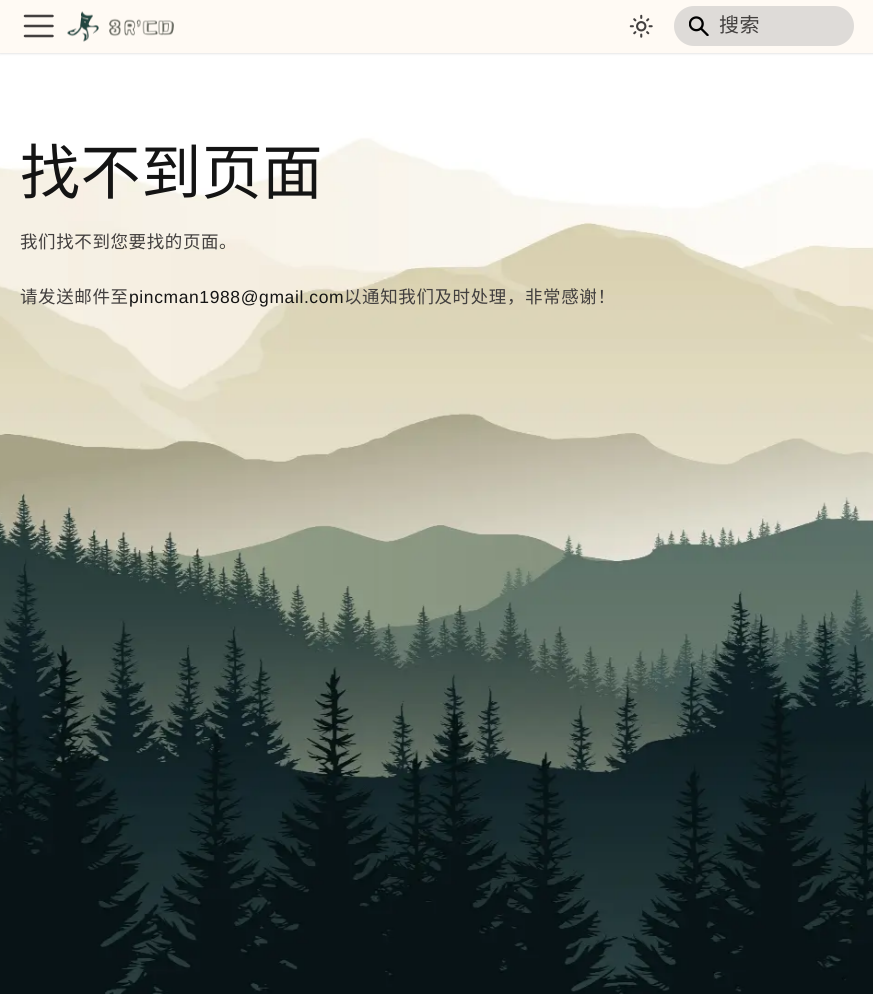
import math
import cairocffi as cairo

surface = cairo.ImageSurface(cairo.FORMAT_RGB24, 873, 994)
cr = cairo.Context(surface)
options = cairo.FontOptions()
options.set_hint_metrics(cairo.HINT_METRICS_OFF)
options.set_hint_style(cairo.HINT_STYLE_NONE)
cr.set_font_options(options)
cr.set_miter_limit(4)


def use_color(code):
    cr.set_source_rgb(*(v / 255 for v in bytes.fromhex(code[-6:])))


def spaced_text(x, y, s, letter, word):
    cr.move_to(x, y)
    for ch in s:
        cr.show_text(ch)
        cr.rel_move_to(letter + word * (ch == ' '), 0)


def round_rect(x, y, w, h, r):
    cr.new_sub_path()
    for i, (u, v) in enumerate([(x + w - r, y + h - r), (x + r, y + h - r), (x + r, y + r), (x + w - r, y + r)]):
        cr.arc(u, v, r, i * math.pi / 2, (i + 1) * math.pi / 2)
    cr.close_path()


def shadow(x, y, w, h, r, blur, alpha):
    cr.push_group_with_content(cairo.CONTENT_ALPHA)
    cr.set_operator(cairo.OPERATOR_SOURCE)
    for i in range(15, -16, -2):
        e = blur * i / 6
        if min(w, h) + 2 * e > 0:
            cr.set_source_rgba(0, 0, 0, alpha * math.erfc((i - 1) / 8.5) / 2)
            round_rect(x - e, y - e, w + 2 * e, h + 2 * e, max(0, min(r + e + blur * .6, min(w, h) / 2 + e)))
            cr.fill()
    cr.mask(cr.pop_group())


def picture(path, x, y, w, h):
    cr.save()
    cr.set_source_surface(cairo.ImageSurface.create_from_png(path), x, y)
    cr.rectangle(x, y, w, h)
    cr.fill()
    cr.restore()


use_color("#ffffff")
cr.paint()
picture("img1.png", 0, 0, 873, 994)
cr.save()
cr.set_fill_rule(cairo.FILL_RULE_EVEN_ODD)
cr.new_path()
cr.move_to(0, 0)
cr.line_to(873, 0)
cr.line_to(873, 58)
cr.line_to(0, 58)
cr.close_path()
cr.move_to(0, 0)
cr.line_to(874, 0)
cr.line_to(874, 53)
cr.line_to(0, 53)
cr.close_path()
cr.clip()
use_color("#000000")
shadow(0, 1, 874, 53, 0, 1, 0.1)
cr.restore()
cr.set_source_rgba(1, 0.98, 0.953, 0.9)
cr.rectangle(0, 0, 873, 53)
cr.fill()
cr.new_path()
cr.move_to(25, 16)
cr.line_to(52.5, 16)
cr.move_to(25, 26)
cr.line_to(52.5, 26)
cr.move_to(25, 36)
cr.line_to(52.5, 36)
use_color("#434040")
cr.set_line_width(2.5)
cr.set_line_cap(cairo.LINE_CAP_ROUND)
cr.stroke()
picture("img2.png", 67, 11, 107, 31)
picture("img3.png", 629, 14, 24, 24)
use_color("#dedbd8")
round_rect(674, 6, 180, 40, 20)
cr.fill()
picture("img4.png", 689, 16, 20, 20)
cr.select_font_face("Noto Sans CJK SC")
cr.set_font_size(20)
use_color("#423f3e")
spaced_text(719, 32, "搜索", 0.6, 0)
cr.set_font_size(60)
use_color("#141414")
spaced_text(20, 194, "找不到页面", 0.6, 0)
cr.set_font_size(17.5)
use_color("#423f3e")
spaced_text(20, 248, "我们找不到您要找的页面。", 0.6, 0)
spaced_text(20, 303, "请发送邮件至", 0.6, 0)
cr.select_font_face("Liberation Sans")
use_color("#141414")
spaced_text(129, 303, "pincman1988@gmail.com", 0.6, 0)
cr.select_font_face("Noto Sans CJK SC")
use_color("#423f3e")
spaced_text(344, 303, "以通知我们及时处理，非常感谢！", 0.6, 0)
surface.write_to_png("result.png")
